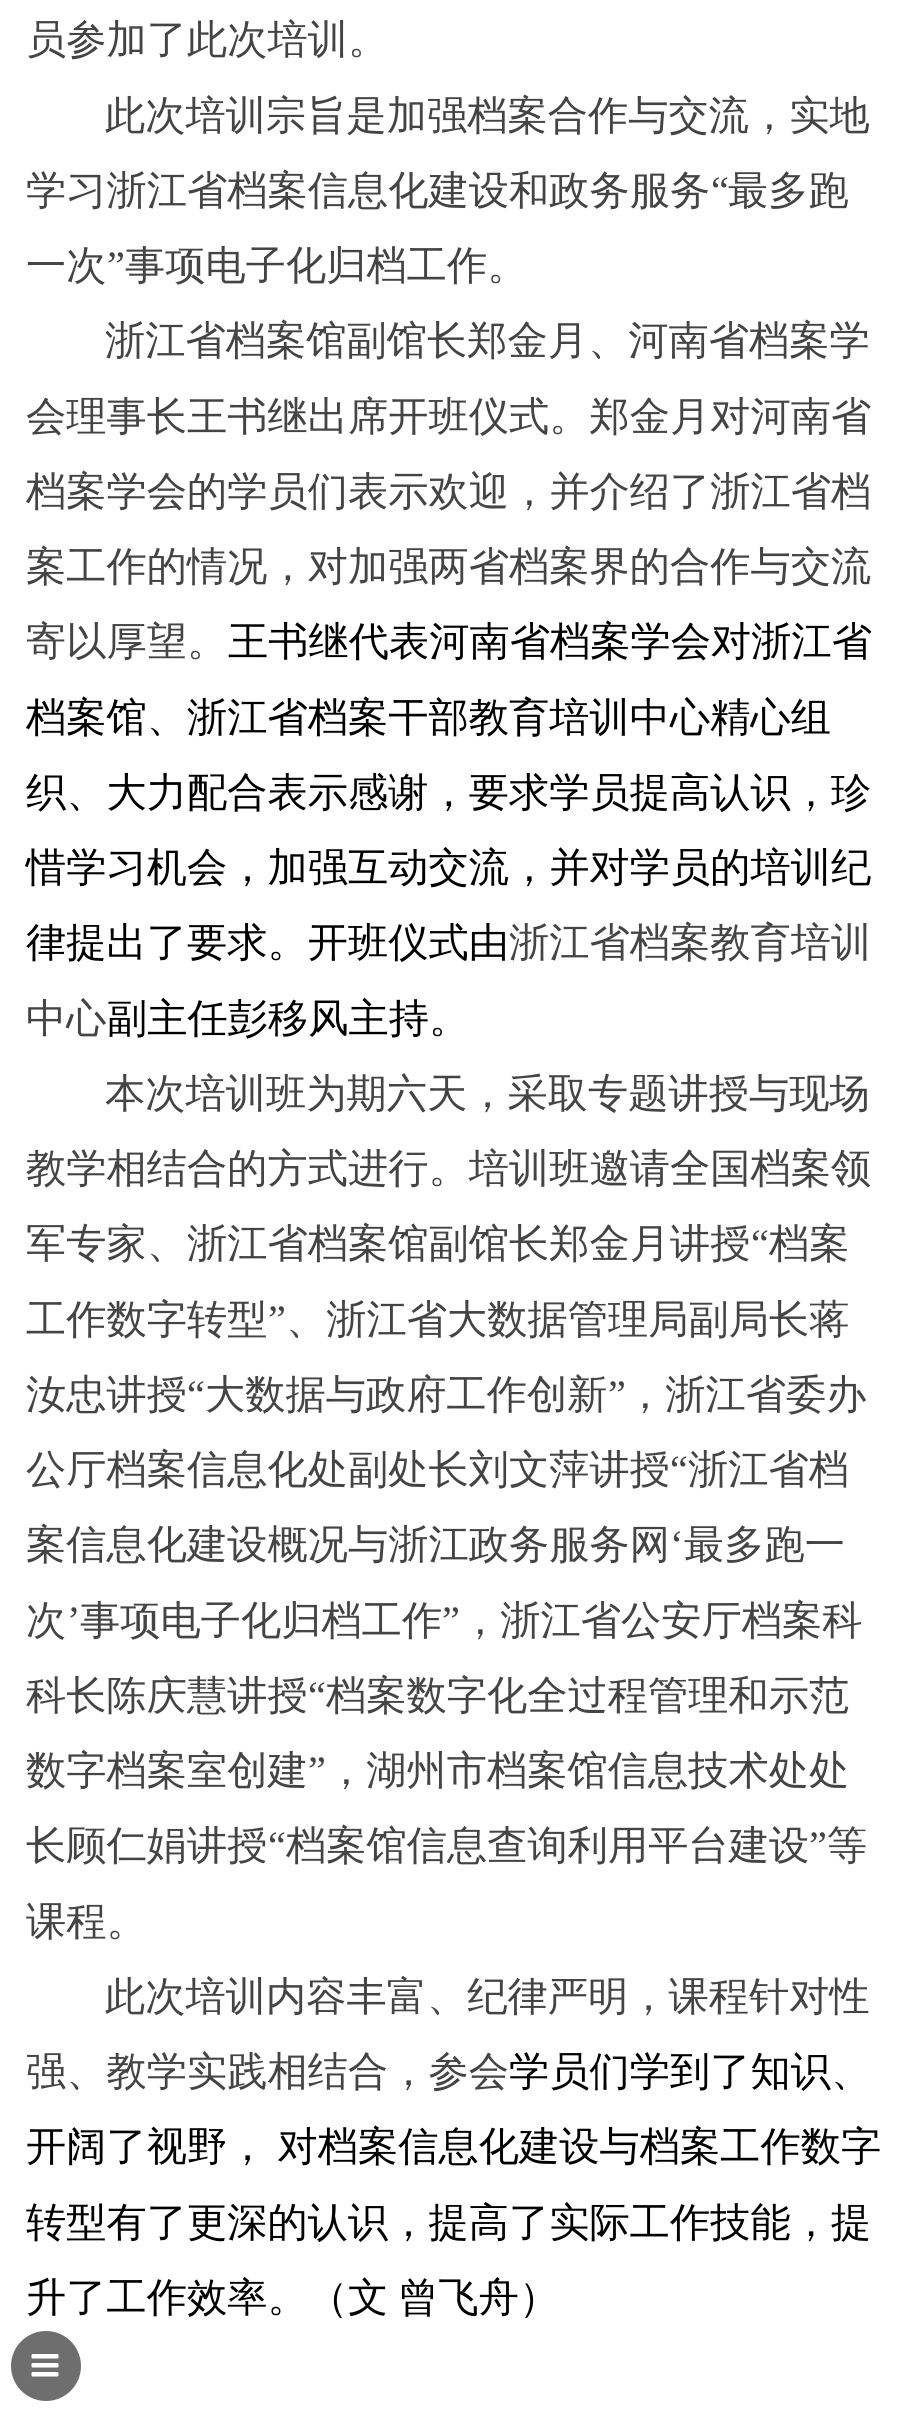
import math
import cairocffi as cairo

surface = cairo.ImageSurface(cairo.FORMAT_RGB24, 908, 2435)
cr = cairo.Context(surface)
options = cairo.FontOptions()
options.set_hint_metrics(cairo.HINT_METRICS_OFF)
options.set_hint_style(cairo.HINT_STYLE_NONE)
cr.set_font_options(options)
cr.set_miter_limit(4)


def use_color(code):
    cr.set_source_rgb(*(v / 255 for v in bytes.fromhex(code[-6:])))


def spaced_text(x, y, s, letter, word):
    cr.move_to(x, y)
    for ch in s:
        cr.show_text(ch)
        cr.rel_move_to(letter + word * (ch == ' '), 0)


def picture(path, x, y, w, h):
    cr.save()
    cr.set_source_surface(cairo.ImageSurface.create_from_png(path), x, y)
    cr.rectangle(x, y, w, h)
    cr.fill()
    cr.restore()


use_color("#ffffff")
cr.paint()
cr.select_font_face("WenQuanYi Zen Hei Medium")
cr.set_font_size(40.25)
use_color("#444444")
cr.move_to(26, 53)
cr.show_text("员参加了此次培训。")
cr.move_to(105, 129)
cr.show_text("此次培训宗旨是加强档案合作与交流，实地")
cr.move_to(26, 204)
cr.show_text("学习浙江省档案信息化建设和政务服务")
cr.select_font_face("Liberation Serif")
cr.move_to(711, 204)
cr.show_text("“")
cr.select_font_face("WenQuanYi Zen Hei Medium")
cr.move_to(728, 204)
cr.show_text("最多跑")
cr.move_to(26, 279)
cr.show_text("一次")
cr.select_font_face("Liberation Serif")
cr.move_to(107, 279)
cr.show_text("”")
cr.select_font_face("WenQuanYi Zen Hei Medium")
cr.move_to(125, 279)
cr.show_text("事项电子化归档工作。")
cr.move_to(105, 354)
cr.show_text("浙江省档案馆副馆长郑金月、河南省档案学")
cr.move_to(26, 430)
cr.show_text("会理事长王书继出席开班仪式。郑金月对河南省")
cr.move_to(26, 505)
cr.show_text("档案学会的学员们表示欢迎，并介绍了浙江省档")
cr.move_to(26, 580)
cr.show_text("案工作的情况，对加强两省档案界的合作与交流")
cr.move_to(26, 655)
cr.show_text("寄以厚望。")
use_color("#000000")
cr.move_to(228, 655)
cr.show_text("王书继代表河南省档案学会对浙江省")
cr.move_to(26, 731)
cr.show_text("档案馆、浙江省档案干部教育培训中心精心组")
cr.move_to(26, 806)
cr.show_text("织、大力配合表示感谢，要求学员提高认识，珍")
cr.move_to(26, 881)
cr.show_text("惜学习机会，加强互动交流，并对学员的培训纪")
cr.move_to(26, 956)
cr.show_text("律提出了要求。开班仪式由")
use_color("#444444")
cr.move_to(509, 956)
cr.show_text("浙江省档案教育培训")
cr.move_to(26, 1032)
cr.show_text("中心")
use_color("#000000")
cr.move_to(107, 1032)
cr.show_text("副主任彭移风主持。")
use_color("#444444")
cr.move_to(105, 1107)
cr.show_text("本次培训班为期六天，采取专题讲授与现场")
cr.move_to(26, 1182)
cr.show_text("教学相结合的方式进行。培训班邀请全国档案领")
cr.move_to(26, 1257)
cr.show_text("军专家、浙江省档案馆副馆长郑金月讲授")
cr.select_font_face("Liberation Serif")
cr.move_to(751, 1257)
cr.show_text("“")
cr.select_font_face("WenQuanYi Zen Hei Medium")
cr.move_to(769, 1257)
cr.show_text("档案")
cr.move_to(26, 1333)
cr.show_text("工作数字转型")
cr.select_font_face("Liberation Serif")
cr.move_to(268, 1333)
cr.show_text("”")
cr.select_font_face("WenQuanYi Zen Hei Medium")
cr.move_to(286, 1333)
cr.show_text("、浙江省大数据管理局副局长蒋")
cr.move_to(26, 1408)
cr.show_text("汝忠讲授")
cr.select_font_face("Liberation Serif")
cr.move_to(187, 1408)
cr.show_text("“")
cr.select_font_face("WenQuanYi Zen Hei Medium")
cr.move_to(205, 1408)
cr.show_text("大数据与政府工作创新")
cr.select_font_face("Liberation Serif")
cr.move_to(608, 1408)
cr.show_text("”")
cr.select_font_face("WenQuanYi Zen Hei Medium")
cr.move_to(625, 1408)
cr.show_text("，浙江省委办")
cr.move_to(26, 1483)
cr.show_text("公厅档案信息化处副处长刘文萍讲授")
cr.select_font_face("Liberation Serif")
cr.move_to(670, 1483)
cr.show_text("“")
cr.select_font_face("WenQuanYi Zen Hei Medium")
cr.move_to(688, 1483)
cr.show_text("浙江省档")
cr.move_to(26, 1558)
cr.show_text("案信息化建设概况与浙江政务服务网")
cr.select_font_face("Liberation Serif")
cr.move_to(670, 1558)
cr.show_text("‘")
cr.select_font_face("WenQuanYi Zen Hei Medium")
cr.move_to(684, 1558)
cr.show_text("最多跑一")
cr.move_to(26, 1634)
cr.show_text("次")
cr.select_font_face("Liberation Serif")
cr.move_to(67, 1634)
cr.show_text("’")
cr.select_font_face("WenQuanYi Zen Hei Medium")
cr.move_to(80, 1634)
cr.show_text("事项电子化归档工作")
cr.select_font_face("Liberation Serif")
cr.move_to(442, 1634)
cr.show_text("”")
cr.select_font_face("WenQuanYi Zen Hei Medium")
cr.move_to(460, 1634)
cr.show_text("，浙江省公安厅档案科")
cr.move_to(26, 1709)
cr.show_text("科长陈庆慧讲授")
cr.select_font_face("Liberation Serif")
cr.move_to(308, 1709)
cr.show_text("“")
cr.select_font_face("WenQuanYi Zen Hei Medium")
cr.move_to(326, 1709)
cr.show_text("档案数字化全过程管理和示范")
cr.move_to(26, 1784)
cr.show_text("数字档案室创建")
cr.select_font_face("Liberation Serif")
cr.move_to(308, 1784)
cr.show_text("”")
cr.select_font_face("WenQuanYi Zen Hei Medium")
cr.move_to(326, 1784)
cr.show_text("，湖州市档案馆信息技术处处")
cr.move_to(26, 1859)
cr.show_text("长顾仁娟讲授")
cr.select_font_face("Liberation Serif")
cr.move_to(268, 1859)
cr.show_text("“")
cr.select_font_face("WenQuanYi Zen Hei Medium")
cr.move_to(286, 1859)
cr.show_text("档案馆信息查询利用平台建设")
cr.select_font_face("Liberation Serif")
cr.move_to(809, 1859)
cr.show_text("”")
cr.select_font_face("WenQuanYi Zen Hei Medium")
cr.move_to(827, 1859)
cr.show_text("等")
cr.move_to(26, 1935)
cr.show_text("课程。")
cr.move_to(105, 2010)
cr.show_text("此次培训内容丰富、纪律严明，课程针对性")
cr.move_to(26, 2085)
cr.show_text("强、教学实践相结合，参会")
use_color("#000000")
cr.move_to(509, 2085)
cr.show_text("学员们学到了知识、")
spaced_text(26, 2160, "开阔了视野， 对档案信息化建设与档案工作数字", 0, -2)
cr.move_to(26, 2236)
cr.show_text("转型有了更深的认识，提高了实际工作技能，提")
spaced_text(26, 2311, "升了工作效率。（文 曾飞舟）", 0, -2)
use_color("#6e6e6e")
cr.new_path()
cr.arc(46, 2366, 35, 0, 2 * math.pi)
cr.fill()
picture("img1.png", 31, 2354, 28, 23)
surface.write_to_png("result.png")
